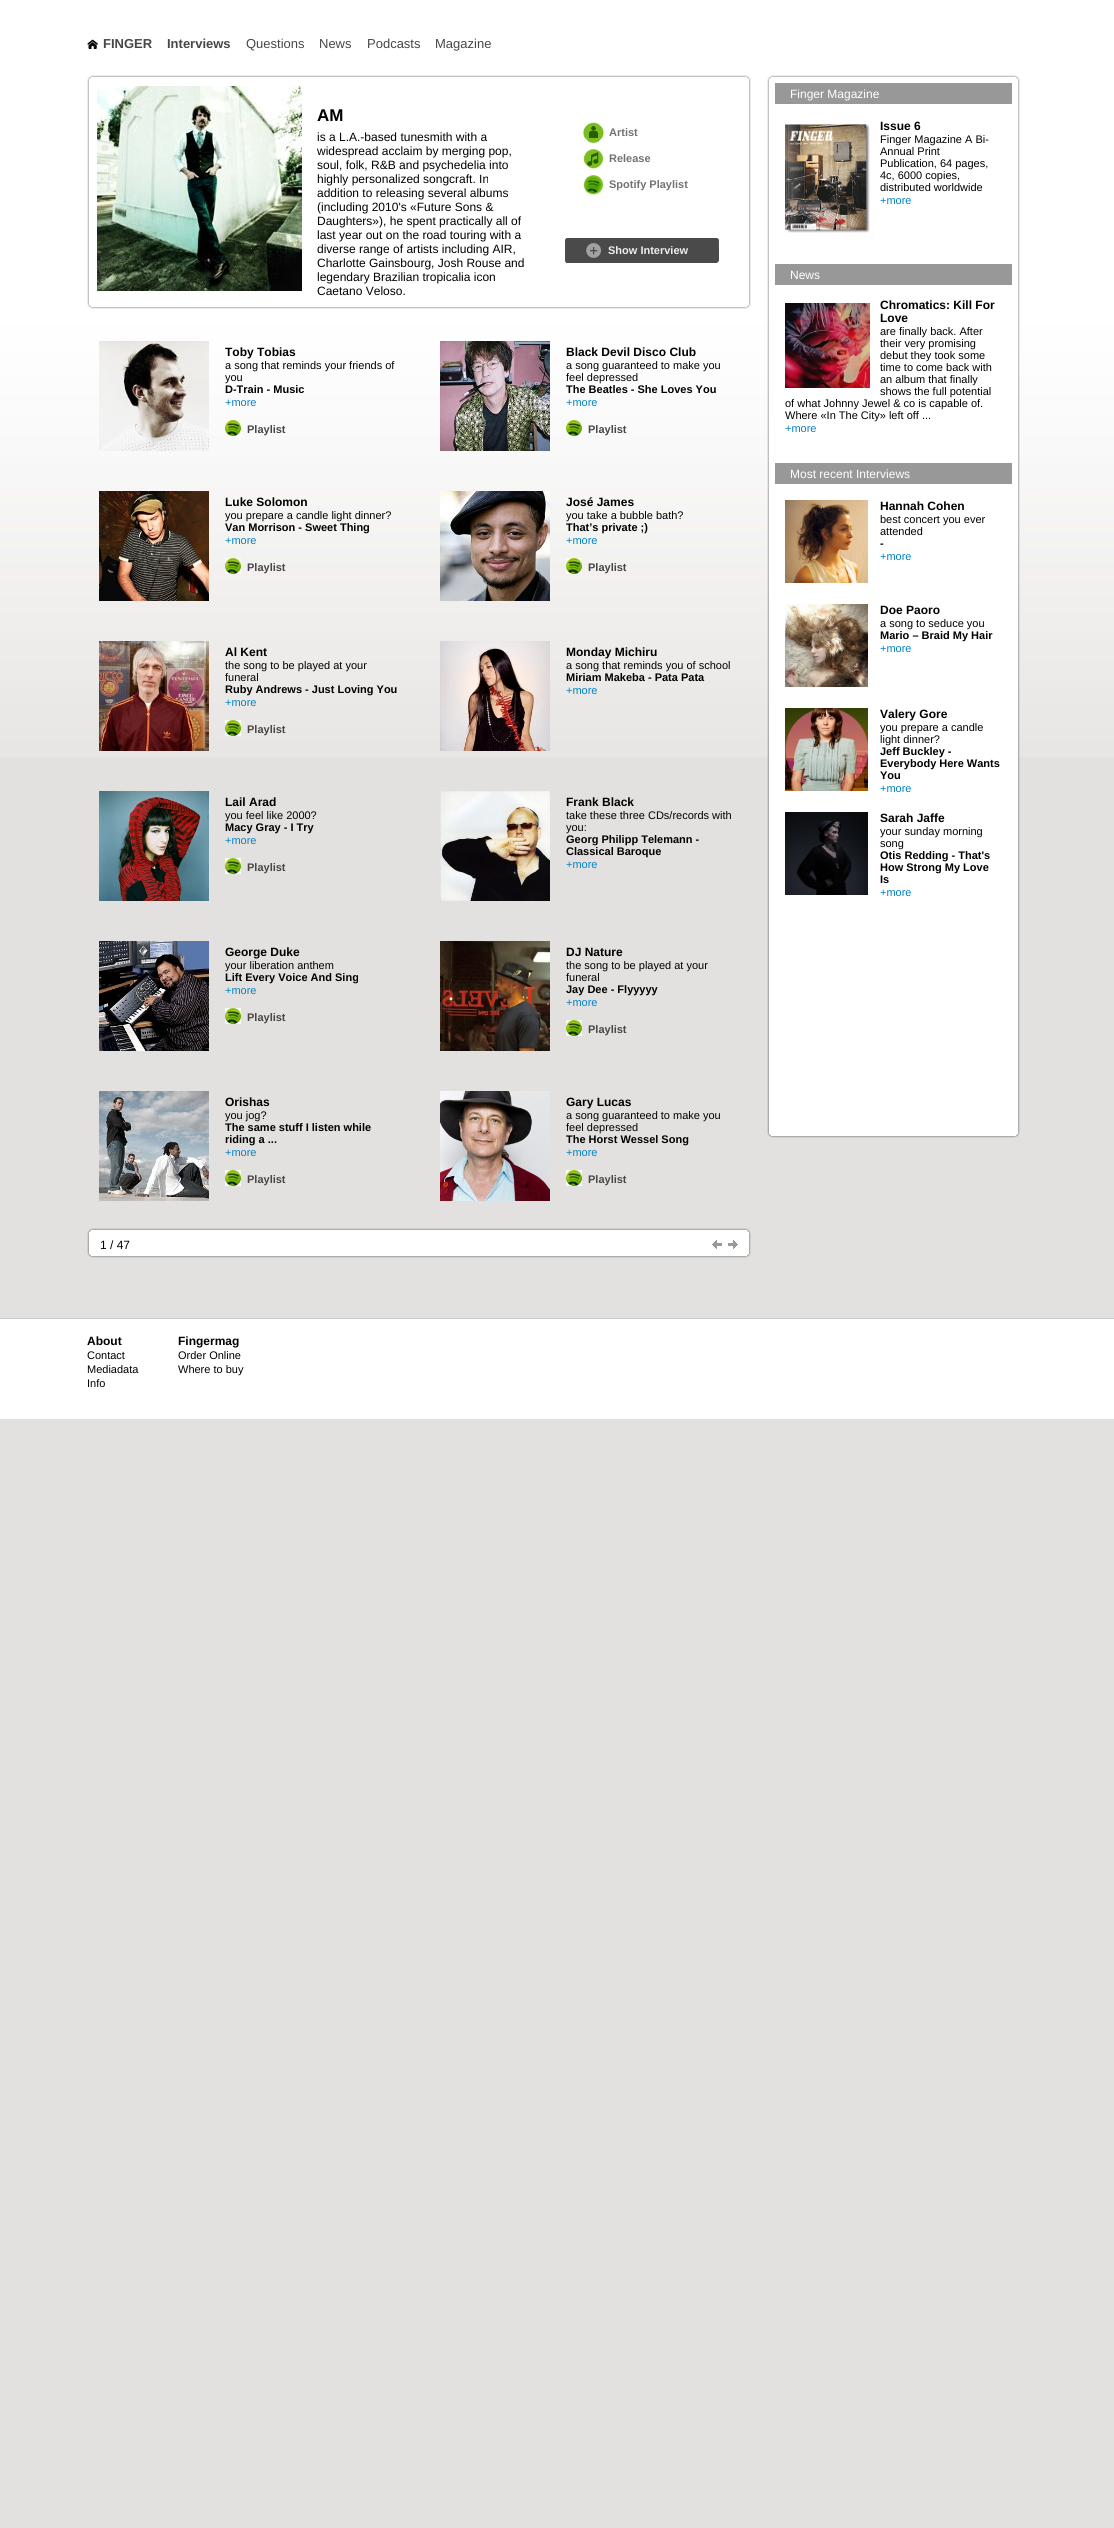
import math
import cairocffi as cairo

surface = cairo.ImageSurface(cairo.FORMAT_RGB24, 1114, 2528)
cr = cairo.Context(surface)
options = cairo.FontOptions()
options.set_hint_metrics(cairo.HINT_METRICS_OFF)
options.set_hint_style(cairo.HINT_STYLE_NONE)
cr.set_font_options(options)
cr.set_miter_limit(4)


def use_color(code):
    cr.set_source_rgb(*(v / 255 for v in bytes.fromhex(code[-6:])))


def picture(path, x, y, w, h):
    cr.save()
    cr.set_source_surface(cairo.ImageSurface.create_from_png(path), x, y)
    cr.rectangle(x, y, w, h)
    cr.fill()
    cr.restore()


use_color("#e2e1df")
cr.paint()
picture("img1.png", 0, 0, 1114, 757)
picture("img2.png", 87, 39, 11, 10)
cr.select_font_face("Liberation Sans", cairo.FONT_SLANT_NORMAL, cairo.FONT_WEIGHT_BOLD)
cr.set_font_size(13)
use_color("#484745")
cr.move_to(103, 48)
cr.show_text("FINGER")
cr.move_to(167, 48)
cr.show_text("Interviews")
cr.select_font_face("Liberation Sans")
cr.move_to(246, 48)
cr.show_text("Questions")
cr.move_to(319, 48)
cr.show_text("News")
cr.move_to(367, 48)
cr.show_text("Podcasts")
cr.move_to(435, 48)
cr.show_text("Magazine")
picture("img3.png", 87, 75, 664, 6)
picture("img4.png", 87, 81, 664, 222)
picture("img5.png", 97, 86, 205, 205)
cr.select_font_face("Liberation Sans", cairo.FONT_SLANT_NORMAL, cairo.FONT_WEIGHT_BOLD)
cr.set_font_size(17)
use_color("#000000")
cr.move_to(317, 121)
cr.show_text("AM")
cr.select_font_face("Liberation Sans")
cr.set_font_size(12)
cr.move_to(317, 141)
cr.show_text("is a L.A.-based tunesmith with a")
cr.move_to(317, 155)
cr.show_text("widespread acclaim by merging pop,")
cr.move_to(317, 169)
cr.show_text("soul, folk, R&B and psychedelia into")
cr.move_to(317, 183)
cr.show_text("highly personalized songcraft. In")
cr.move_to(317, 197)
cr.show_text("addition to releasing several albums")
cr.move_to(317, 211)
cr.show_text("(including 2010's «Future Sons &")
cr.move_to(317, 225)
cr.show_text("Daughters»), he spent practically all of")
cr.move_to(317, 239)
cr.show_text("last year out on the road touring with a")
cr.move_to(317, 253)
cr.show_text("diverse range of artists including AIR,")
cr.move_to(317, 267)
cr.show_text("Charlotte Gainsbourg, Josh Rouse and")
cr.move_to(317, 281)
cr.show_text("legendary Brazilian tropicalia icon")
cr.move_to(317, 295)
cr.show_text("Caetano Veloso.")
picture("img6.png", 583, 122, 21, 21)
cr.select_font_face("Liberation Sans", cairo.FONT_SLANT_NORMAL, cairo.FONT_WEIGHT_BOLD)
cr.set_font_size(11)
use_color("#737373")
cr.move_to(609, 136)
cr.show_text("Artist")
picture("img7.png", 583, 149, 21, 20)
cr.move_to(609, 162)
cr.show_text("Release")
picture("img8.png", 583, 175, 21, 20)
cr.move_to(609, 188)
cr.show_text("Spotify Playlist")
picture("img9.png", 565, 238, 154, 25)
use_color("#eeeeee")
cr.move_to(608, 254)
cr.show_text("Show Interview")
picture("img10.png", 87, 303, 664, 6)
picture("img11.png", 99, 341, 110, 110)
cr.set_font_size(12)
use_color("#000000")
cr.move_to(225, 356)
cr.show_text("Toby Tobias")
cr.select_font_face("Liberation Sans")
cr.set_font_size(11)
cr.move_to(225, 369)
cr.show_text("a song that reminds your friends of")
cr.move_to(225, 381)
cr.show_text("you")
cr.select_font_face("Liberation Sans", cairo.FONT_SLANT_NORMAL, cairo.FONT_WEIGHT_BOLD)
cr.move_to(225, 393)
cr.show_text("D-Train - Music")
cr.select_font_face("Liberation Sans")
use_color("#0481c1")
cr.move_to(225, 406)
cr.show_text("+more")
picture("img12.png", 225, 420, 16, 16)
cr.select_font_face("Liberation Sans", cairo.FONT_SLANT_NORMAL, cairo.FONT_WEIGHT_BOLD)
use_color("#484745")
cr.move_to(247, 433)
cr.show_text("Playlist")
picture("img13.png", 99, 491, 110, 110)
cr.set_font_size(12)
use_color("#000000")
cr.move_to(225, 506)
cr.show_text("Luke Solomon")
cr.select_font_face("Liberation Sans")
cr.set_font_size(11)
cr.move_to(225, 519)
cr.show_text("you prepare a candle light dinner?")
cr.select_font_face("Liberation Sans", cairo.FONT_SLANT_NORMAL, cairo.FONT_WEIGHT_BOLD)
cr.move_to(225, 531)
cr.show_text("Van Morrison - Sweet Thing")
cr.select_font_face("Liberation Sans")
use_color("#0481c1")
cr.move_to(225, 544)
cr.show_text("+more")
picture("img12.png", 225, 558, 16, 16)
cr.select_font_face("Liberation Sans", cairo.FONT_SLANT_NORMAL, cairo.FONT_WEIGHT_BOLD)
use_color("#484745")
cr.move_to(247, 571)
cr.show_text("Playlist")
picture("img14.png", 99, 641, 110, 110)
cr.set_font_size(12)
use_color("#000000")
cr.move_to(225, 656)
cr.show_text("Al Kent")
cr.select_font_face("Liberation Sans")
cr.set_font_size(11)
cr.move_to(225, 669)
cr.show_text("the song to be played at your")
cr.move_to(225, 681)
cr.show_text("funeral")
cr.select_font_face("Liberation Sans", cairo.FONT_SLANT_NORMAL, cairo.FONT_WEIGHT_BOLD)
cr.move_to(225, 693)
cr.show_text("Ruby Andrews - Just Loving You")
cr.select_font_face("Liberation Sans")
use_color("#0481c1")
cr.move_to(225, 706)
cr.show_text("+more")
picture("img12.png", 225, 720, 16, 16)
cr.select_font_face("Liberation Sans", cairo.FONT_SLANT_NORMAL, cairo.FONT_WEIGHT_BOLD)
use_color("#484745")
cr.move_to(247, 733)
cr.show_text("Playlist")
picture("img15.png", 99, 791, 110, 110)
cr.set_font_size(12)
use_color("#000000")
cr.move_to(225, 806)
cr.show_text("Lail Arad")
cr.select_font_face("Liberation Sans")
cr.set_font_size(11)
cr.move_to(225, 819)
cr.show_text("you feel like 2000?")
cr.select_font_face("Liberation Sans", cairo.FONT_SLANT_NORMAL, cairo.FONT_WEIGHT_BOLD)
cr.move_to(225, 831)
cr.show_text("Macy Gray - I Try")
cr.select_font_face("Liberation Sans")
use_color("#0481c1")
cr.move_to(225, 844)
cr.show_text("+more")
picture("img12.png", 225, 858, 16, 16)
cr.select_font_face("Liberation Sans", cairo.FONT_SLANT_NORMAL, cairo.FONT_WEIGHT_BOLD)
use_color("#484745")
cr.move_to(247, 871)
cr.show_text("Playlist")
picture("img16.png", 99, 941, 110, 110)
cr.set_font_size(12)
use_color("#000000")
cr.move_to(225, 956)
cr.show_text("George Duke")
cr.select_font_face("Liberation Sans")
cr.set_font_size(11)
cr.move_to(225, 969)
cr.show_text("your liberation anthem")
cr.select_font_face("Liberation Sans", cairo.FONT_SLANT_NORMAL, cairo.FONT_WEIGHT_BOLD)
cr.move_to(225, 981)
cr.show_text("Lift Every Voice And Sing")
cr.select_font_face("Liberation Sans")
use_color("#0481c1")
cr.move_to(225, 994)
cr.show_text("+more")
picture("img12.png", 225, 1008, 16, 16)
cr.select_font_face("Liberation Sans", cairo.FONT_SLANT_NORMAL, cairo.FONT_WEIGHT_BOLD)
use_color("#484745")
cr.move_to(247, 1021)
cr.show_text("Playlist")
picture("img17.png", 99, 1091, 110, 110)
cr.set_font_size(12)
use_color("#000000")
cr.move_to(225, 1106)
cr.show_text("Orishas")
cr.select_font_face("Liberation Sans")
cr.set_font_size(11)
cr.move_to(225, 1119)
cr.show_text("you jog?")
cr.select_font_face("Liberation Sans", cairo.FONT_SLANT_NORMAL, cairo.FONT_WEIGHT_BOLD)
cr.move_to(225, 1131)
cr.show_text("The same stuff I listen while")
cr.move_to(225, 1143)
cr.show_text("riding a ...")
cr.select_font_face("Liberation Sans")
use_color("#0481c1")
cr.move_to(225, 1156)
cr.show_text("+more")
picture("img12.png", 225, 1170, 16, 16)
cr.select_font_face("Liberation Sans", cairo.FONT_SLANT_NORMAL, cairo.FONT_WEIGHT_BOLD)
use_color("#484745")
cr.move_to(247, 1183)
cr.show_text("Playlist")
picture("img18.png", 440, 341, 110, 110)
cr.set_font_size(12)
use_color("#000000")
cr.move_to(566, 356)
cr.show_text("Black Devil Disco Club")
cr.select_font_face("Liberation Sans")
cr.set_font_size(11)
cr.move_to(566, 369)
cr.show_text("a song guaranteed to make you")
cr.move_to(566, 381)
cr.show_text("feel depressed")
cr.select_font_face("Liberation Sans", cairo.FONT_SLANT_NORMAL, cairo.FONT_WEIGHT_BOLD)
cr.move_to(566, 393)
cr.show_text("The Beatles - She Loves You")
cr.select_font_face("Liberation Sans")
use_color("#0481c1")
cr.move_to(566, 406)
cr.show_text("+more")
picture("img12.png", 566, 420, 16, 16)
cr.select_font_face("Liberation Sans", cairo.FONT_SLANT_NORMAL, cairo.FONT_WEIGHT_BOLD)
use_color("#484745")
cr.move_to(588, 433)
cr.show_text("Playlist")
picture("img19.png", 440, 491, 110, 110)
cr.set_font_size(12)
use_color("#000000")
cr.move_to(566, 506)
cr.show_text("José James")
cr.select_font_face("Liberation Sans")
cr.set_font_size(11)
cr.move_to(566, 519)
cr.show_text("you take a bubble bath?")
cr.select_font_face("Liberation Sans", cairo.FONT_SLANT_NORMAL, cairo.FONT_WEIGHT_BOLD)
cr.move_to(566, 531)
cr.show_text("That’s private ;)")
cr.select_font_face("Liberation Sans")
use_color("#0481c1")
cr.move_to(566, 544)
cr.show_text("+more")
picture("img12.png", 566, 558, 16, 16)
cr.select_font_face("Liberation Sans", cairo.FONT_SLANT_NORMAL, cairo.FONT_WEIGHT_BOLD)
use_color("#484745")
cr.move_to(588, 571)
cr.show_text("Playlist")
picture("img20.png", 440, 641, 110, 110)
cr.set_font_size(12)
use_color("#000000")
cr.move_to(566, 656)
cr.show_text("Monday Michiru")
cr.select_font_face("Liberation Sans")
cr.set_font_size(11)
cr.move_to(566, 669)
cr.show_text("a song that reminds you of school")
cr.select_font_face("Liberation Sans", cairo.FONT_SLANT_NORMAL, cairo.FONT_WEIGHT_BOLD)
cr.move_to(566, 681)
cr.show_text("Miriam Makeba - Pata Pata")
cr.select_font_face("Liberation Sans")
use_color("#0481c1")
cr.move_to(566, 694)
cr.show_text("+more")
picture("img21.png", 440, 791, 110, 110)
cr.select_font_face("Liberation Sans", cairo.FONT_SLANT_NORMAL, cairo.FONT_WEIGHT_BOLD)
cr.set_font_size(12)
use_color("#000000")
cr.move_to(566, 806)
cr.show_text("Frank Black")
cr.select_font_face("Liberation Sans")
cr.set_font_size(11)
cr.move_to(566, 819)
cr.show_text("take these three CDs/records with")
cr.move_to(566, 831)
cr.show_text("you:")
cr.select_font_face("Liberation Sans", cairo.FONT_SLANT_NORMAL, cairo.FONT_WEIGHT_BOLD)
cr.move_to(566, 843)
cr.show_text("Georg Philipp Telemann -")
cr.move_to(566, 855)
cr.show_text("Classical Baroque")
cr.select_font_face("Liberation Sans")
use_color("#0481c1")
cr.move_to(566, 868)
cr.show_text("+more")
picture("img22.png", 440, 941, 110, 110)
cr.select_font_face("Liberation Sans", cairo.FONT_SLANT_NORMAL, cairo.FONT_WEIGHT_BOLD)
cr.set_font_size(12)
use_color("#000000")
cr.move_to(566, 956)
cr.show_text("DJ Nature")
cr.select_font_face("Liberation Sans")
cr.set_font_size(11)
cr.move_to(566, 969)
cr.show_text("the song to be played at your")
cr.move_to(566, 981)
cr.show_text("funeral")
cr.select_font_face("Liberation Sans", cairo.FONT_SLANT_NORMAL, cairo.FONT_WEIGHT_BOLD)
cr.move_to(566, 993)
cr.show_text("Jay Dee - Flyyyyy")
cr.select_font_face("Liberation Sans")
use_color("#0481c1")
cr.move_to(566, 1006)
cr.show_text("+more")
picture("img12.png", 566, 1020, 16, 16)
cr.select_font_face("Liberation Sans", cairo.FONT_SLANT_NORMAL, cairo.FONT_WEIGHT_BOLD)
use_color("#484745")
cr.move_to(588, 1033)
cr.show_text("Playlist")
picture("img23.png", 440, 1091, 110, 110)
cr.set_font_size(12)
use_color("#000000")
cr.move_to(566, 1106)
cr.show_text("Gary Lucas")
cr.select_font_face("Liberation Sans")
cr.set_font_size(11)
cr.move_to(566, 1119)
cr.show_text("a song guaranteed to make you")
cr.move_to(566, 1131)
cr.show_text("feel depressed")
cr.select_font_face("Liberation Sans", cairo.FONT_SLANT_NORMAL, cairo.FONT_WEIGHT_BOLD)
cr.move_to(566, 1143)
cr.show_text("The Horst Wessel Song")
cr.select_font_face("Liberation Sans")
use_color("#0481c1")
cr.move_to(566, 1156)
cr.show_text("+more")
picture("img12.png", 566, 1170, 16, 16)
cr.select_font_face("Liberation Sans", cairo.FONT_SLANT_NORMAL, cairo.FONT_WEIGHT_BOLD)
use_color("#484745")
cr.move_to(588, 1183)
cr.show_text("Playlist")
picture("img24.png", 87, 1228, 664, 6)
picture("img25.png", 87, 1234, 664, 18)
cr.select_font_face("Liberation Sans")
cr.set_font_size(12)
use_color("#000000")
cr.move_to(100, 1249)
cr.show_text("1 / 47")
picture("img26.png", 712, 1240, 10, 9)
picture("img27.png", 728, 1240, 10, 9)
picture("img28.png", 87, 1252, 664, 6)
picture("img29.png", 767, 75, 253, 5)
picture("img30.png", 767, 80, 253, 1050)
use_color("#999898")
cr.rectangle(775, 83, 237, 21)
cr.fill()
use_color("#ffffff")
cr.move_to(790, 98)
cr.show_text("Finger Magazine")
picture("img31.png", 785, 124, 85, 109)
cr.select_font_face("Liberation Sans", cairo.FONT_SLANT_NORMAL, cairo.FONT_WEIGHT_BOLD)
use_color("#000000")
cr.move_to(880, 130)
cr.show_text("Issue 6")
cr.select_font_face("Liberation Sans")
cr.set_font_size(11)
cr.move_to(880, 143)
cr.show_text("Finger Magazine A Bi-")
cr.move_to(880, 155)
cr.show_text("Annual Print")
cr.move_to(880, 167)
cr.show_text("Publication, 64 pages,")
cr.move_to(880, 179)
cr.show_text("4c, 6000 copies,")
cr.move_to(880, 191)
cr.show_text("distributed worldwide")
use_color("#0481c1")
cr.move_to(880, 204)
cr.show_text("+more")
use_color("#999898")
cr.rectangle(775, 264, 237, 21)
cr.fill()
cr.set_font_size(12)
use_color("#ffffff")
cr.move_to(790, 279)
cr.show_text("News")
cr.select_font_face("Liberation Sans", cairo.FONT_SLANT_NORMAL, cairo.FONT_WEIGHT_BOLD)
use_color("#000000")
cr.move_to(880, 309)
cr.show_text("Chromatics: Kill For")
cr.move_to(880, 322)
cr.show_text("Love")
cr.select_font_face("Liberation Sans")
cr.set_font_size(11)
cr.move_to(880, 335)
cr.show_text("are finally back. After")
cr.move_to(880, 347)
cr.show_text("their very promising")
cr.move_to(880, 359)
cr.show_text("debut they took some")
cr.move_to(880, 371)
cr.show_text("time to come back with")
cr.move_to(880, 383)
cr.show_text("an album that finally")
cr.move_to(880, 395)
cr.show_text("shows the full potential")
cr.move_to(785, 407)
cr.show_text("of what Johnny Jewel & co is capable of.")
cr.move_to(785, 419)
cr.show_text("Where «In The City» left off ...")
use_color("#0481c1")
cr.move_to(785, 432)
cr.show_text("+more")
picture("img32.png", 785, 303, 85, 85)
use_color("#999898")
cr.rectangle(775, 463, 237, 21)
cr.fill()
cr.set_font_size(12)
use_color("#ffffff")
cr.move_to(790, 478)
cr.show_text("Most recent Interviews")
picture("img33.png", 785, 500, 83, 83)
cr.select_font_face("Liberation Sans", cairo.FONT_SLANT_NORMAL, cairo.FONT_WEIGHT_BOLD)
use_color("#000000")
cr.move_to(880, 510)
cr.show_text("Hannah Cohen")
cr.select_font_face("Liberation Sans")
cr.set_font_size(11)
cr.move_to(880, 523)
cr.show_text("best concert you ever")
cr.move_to(880, 535)
cr.show_text("attended")
cr.select_font_face("Liberation Sans", cairo.FONT_SLANT_NORMAL, cairo.FONT_WEIGHT_BOLD)
cr.move_to(880, 547)
cr.show_text("-")
cr.select_font_face("Liberation Sans")
use_color("#0481c1")
cr.move_to(880, 560)
cr.show_text("+more")
picture("img34.png", 785, 604, 83, 83)
cr.select_font_face("Liberation Sans", cairo.FONT_SLANT_NORMAL, cairo.FONT_WEIGHT_BOLD)
cr.set_font_size(12)
use_color("#000000")
cr.move_to(880, 614)
cr.show_text("Doe Paoro")
cr.select_font_face("Liberation Sans")
cr.set_font_size(11)
cr.move_to(880, 627)
cr.show_text("a song to seduce you")
cr.select_font_face("Liberation Sans", cairo.FONT_SLANT_NORMAL, cairo.FONT_WEIGHT_BOLD)
cr.move_to(880, 639)
cr.show_text("Mario – Braid My Hair")
cr.select_font_face("Liberation Sans")
use_color("#0481c1")
cr.move_to(880, 652)
cr.show_text("+more")
picture("img35.png", 785, 708, 83, 83)
cr.select_font_face("Liberation Sans", cairo.FONT_SLANT_NORMAL, cairo.FONT_WEIGHT_BOLD)
cr.set_font_size(12)
use_color("#000000")
cr.move_to(880, 718)
cr.show_text("Valery Gore")
cr.select_font_face("Liberation Sans")
cr.set_font_size(11)
cr.move_to(880, 731)
cr.show_text("you prepare a candle")
cr.move_to(880, 743)
cr.show_text("light dinner?")
cr.select_font_face("Liberation Sans", cairo.FONT_SLANT_NORMAL, cairo.FONT_WEIGHT_BOLD)
cr.move_to(880, 755)
cr.show_text("Jeff Buckley -")
cr.move_to(880, 767)
cr.show_text("Everybody Here Wants")
cr.move_to(880, 779)
cr.show_text("You")
cr.select_font_face("Liberation Sans")
use_color("#0481c1")
cr.move_to(880, 792)
cr.show_text("+more")
picture("img36.png", 785, 812, 83, 83)
cr.select_font_face("Liberation Sans", cairo.FONT_SLANT_NORMAL, cairo.FONT_WEIGHT_BOLD)
cr.set_font_size(12)
use_color("#000000")
cr.move_to(880, 822)
cr.show_text("Sarah Jaffe")
cr.select_font_face("Liberation Sans")
cr.set_font_size(11)
cr.move_to(880, 835)
cr.show_text("your sunday morning")
cr.move_to(880, 847)
cr.show_text("song")
cr.select_font_face("Liberation Sans", cairo.FONT_SLANT_NORMAL, cairo.FONT_WEIGHT_BOLD)
cr.move_to(880, 859)
cr.show_text("Otis Redding - That's")
cr.move_to(880, 871)
cr.show_text("How Strong My Love")
cr.move_to(880, 883)
cr.show_text("Is")
cr.select_font_face("Liberation Sans")
use_color("#0481c1")
cr.move_to(880, 896)
cr.show_text("+more")
picture("img37.png", 767, 1130, 253, 8)
use_color("#ffffff")
cr.rectangle(0, 1319, 1114, 100)
cr.fill()
use_color("#cdcdcd")
cr.rectangle(0, 1318, 1114, 1)
cr.fill()
cr.select_font_face("Liberation Sans", cairo.FONT_SLANT_NORMAL, cairo.FONT_WEIGHT_BOLD)
cr.set_font_size(12)
use_color("#000000")
cr.move_to(87, 1345)
cr.show_text("About")
cr.select_font_face("Liberation Sans")
cr.set_font_size(11)
cr.move_to(87, 1359)
cr.show_text("Contact")
cr.move_to(87, 1373)
cr.show_text("Mediadata")
cr.move_to(87, 1387)
cr.show_text("Info")
cr.select_font_face("Liberation Sans", cairo.FONT_SLANT_NORMAL, cairo.FONT_WEIGHT_BOLD)
cr.set_font_size(12)
cr.move_to(178, 1345)
cr.show_text("Fingermag")
cr.select_font_face("Liberation Sans")
cr.set_font_size(11)
cr.move_to(178, 1359)
cr.show_text("Order Online")
cr.move_to(178, 1373)
cr.show_text("Where to buy")
surface.write_to_png("result.png")
